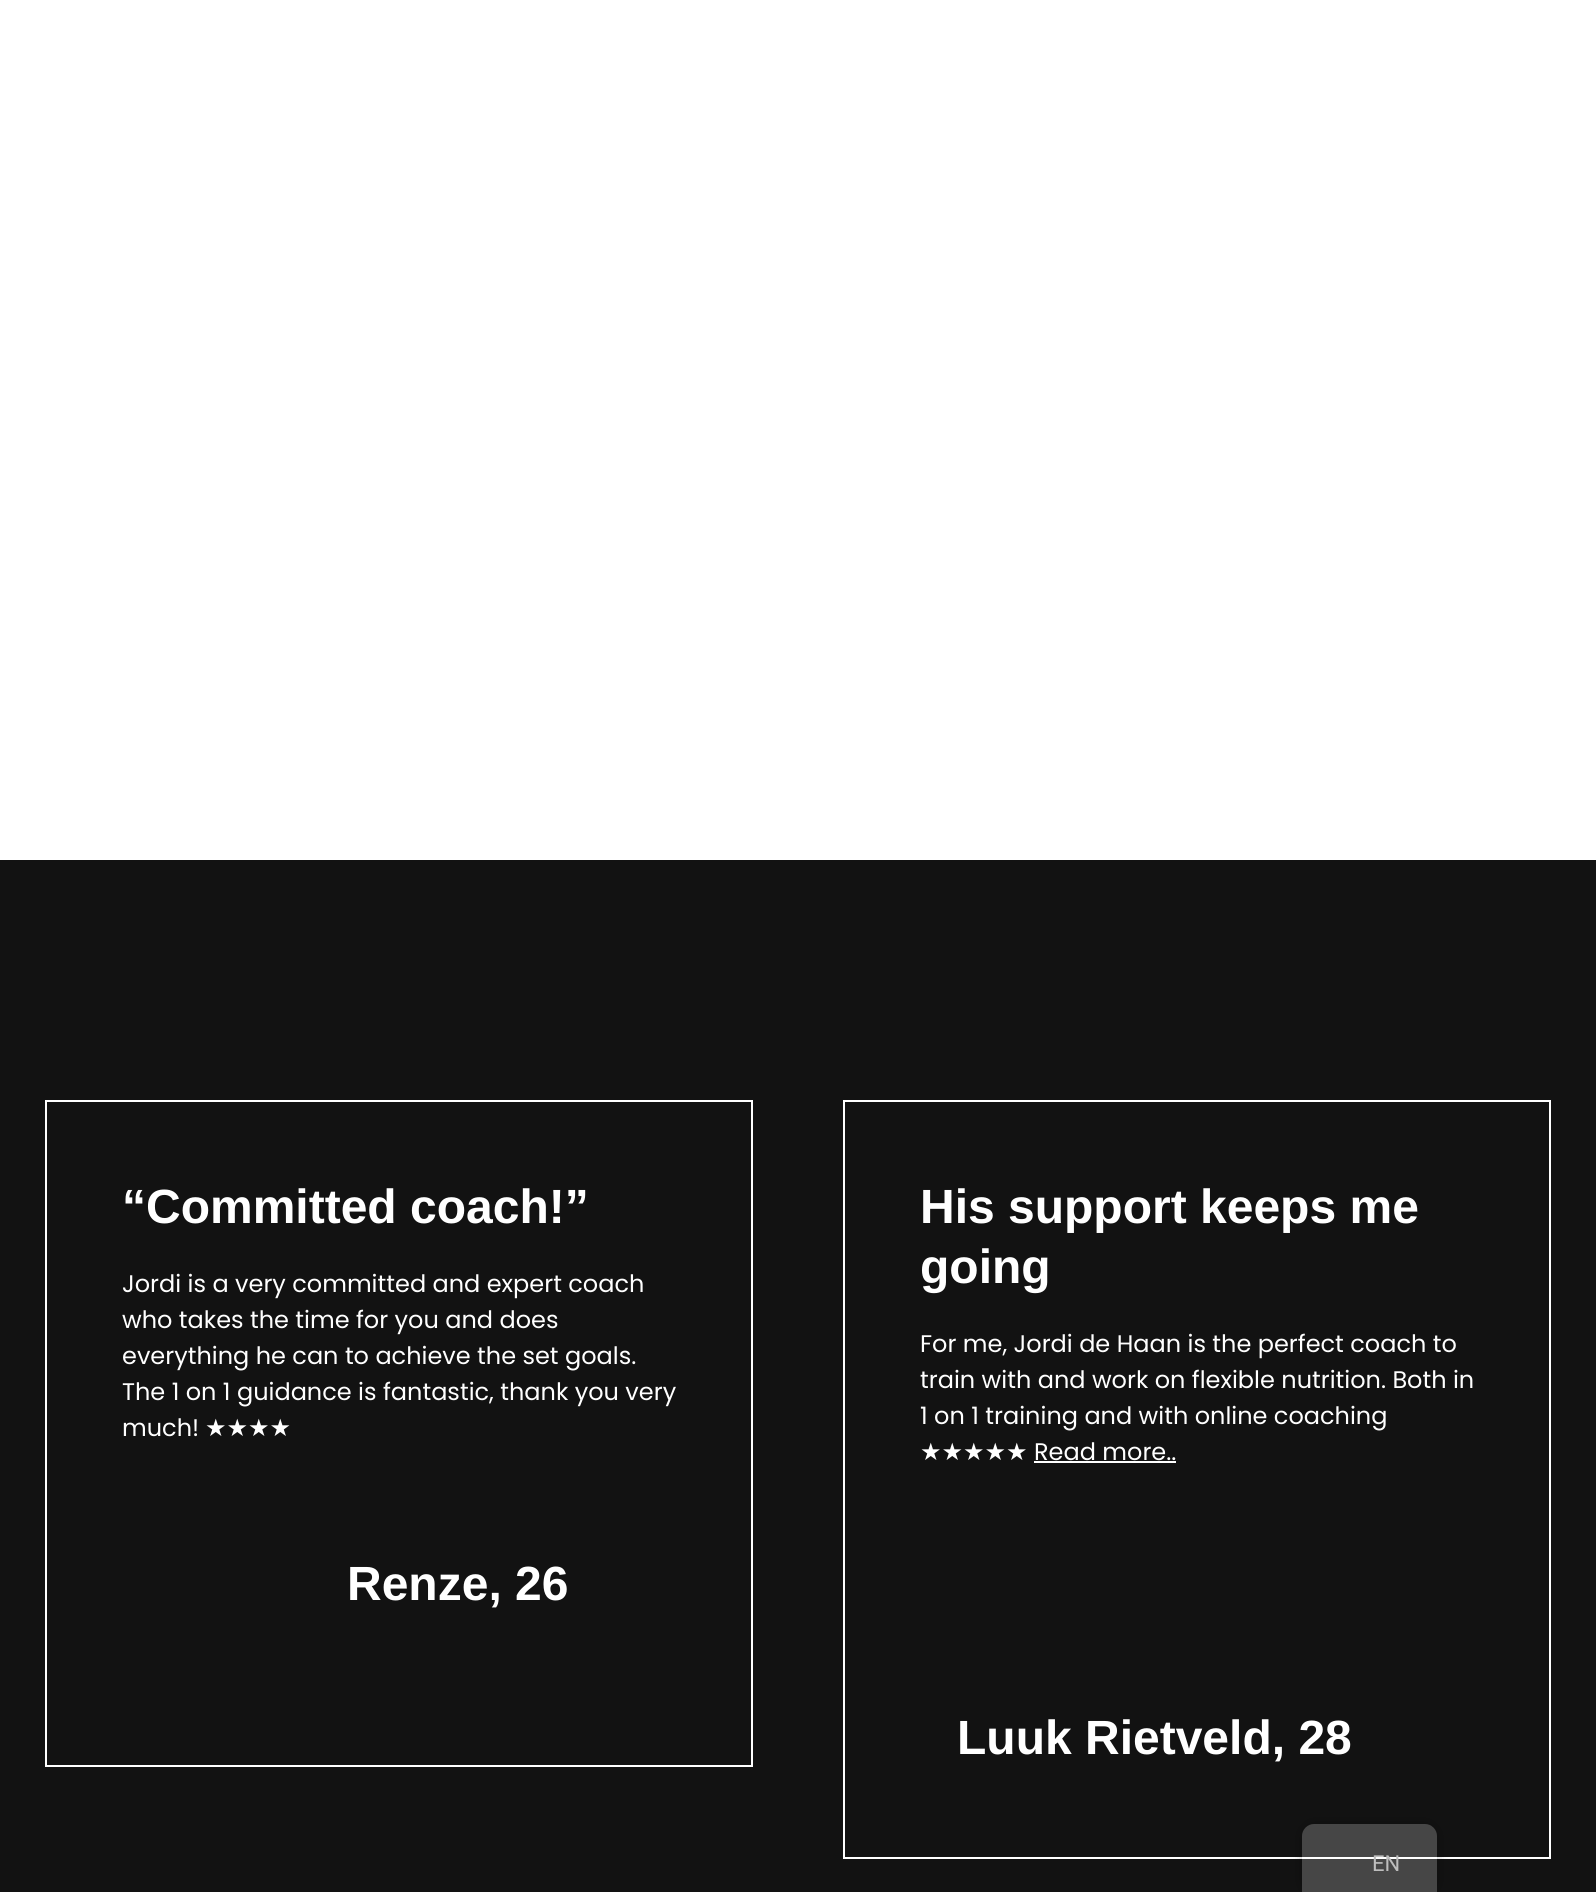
import math
import cairocffi as cairo

surface = cairo.ImageSurface(cairo.FORMAT_RGB24, 1596, 1892)
cr = cairo.Context(surface)
options = cairo.FontOptions()
options.set_hint_metrics(cairo.HINT_METRICS_OFF)
options.set_hint_style(cairo.HINT_STYLE_NONE)
cr.set_font_options(options)
cr.set_miter_limit(4)


def use_color(code):
    cr.set_source_rgb(*(v / 255 for v in bytes.fromhex(code[-6:])))


def round_rect(x, y, w, h, r):
    cr.new_sub_path()
    for i, (u, v) in enumerate([(x + w - r, y + h - r), (x + r, y + h - r), (x + r, y + r), (x + w - r, y + r)]):
        cr.arc(u, v, r, i * math.pi / 2, (i + 1) * math.pi / 2)
    cr.close_path()


def shadow(x, y, w, h, r, blur, alpha):
    cr.push_group_with_content(cairo.CONTENT_ALPHA)
    cr.set_operator(cairo.OPERATOR_SOURCE)
    for i in range(15, -16, -2):
        e = blur * i / 6
        if min(w, h) + 2 * e > 0:
            cr.set_source_rgba(0, 0, 0, alpha * math.erfc((i - 1) / 8.5) / 2)
            round_rect(x - e, y - e, w + 2 * e, h + 2 * e, max(0, min(r + e + blur * .6, min(w, h) / 2 + e)))
            cr.fill()
    cr.mask(cr.pop_group())


use_color("#ffffff")
cr.paint()
use_color("#121212")
cr.rectangle(0, 860, 1596, 1032)
cr.fill()
cr.rectangle(46, 1101, 706, 665)
use_color("#ffffff")
cr.stroke()
cr.select_font_face("Liberation Sans", cairo.FONT_SLANT_NORMAL, cairo.FONT_WEIGHT_BOLD)
cr.set_font_size(48)
cr.move_to(122, 1223)
cr.show_text("“Committed coach!”")
cr.select_font_face("Poppins")
cr.set_font_size(24)
cr.move_to(122, 1292)
cr.show_text("Jordi is a very committed and expert coach")
cr.move_to(122, 1328)
cr.show_text("who takes the time for you and does")
cr.move_to(122, 1364)
cr.show_text("everything he can to achieve the set goals.")
cr.move_to(122, 1400)
cr.show_text("The 1 on 1 guidance is fantastic, thank you very")
cr.move_to(122, 1436)
cr.show_text("much!")
cr.select_font_face("DejaVu Sans")
cr.move_to(205, 1436)
cr.show_text("★★★★")
cr.select_font_face("Liberation Sans", cairo.FONT_SLANT_NORMAL, cairo.FONT_WEIGHT_BOLD)
cr.set_font_size(48)
cr.move_to(347, 1600)
cr.show_text("Renze, 26")
cr.rectangle(844, 1101, 706, 757)
cr.stroke()
cr.move_to(920, 1223)
cr.show_text("His support keeps me")
cr.move_to(920, 1283)
cr.show_text("going")
cr.select_font_face("Poppins")
cr.set_font_size(24)
cr.move_to(920, 1352)
cr.show_text("For me, Jordi de Haan is the perfect coach to")
cr.move_to(920, 1388)
cr.show_text("train with and work on flexible nutrition. Both in")
cr.move_to(920, 1424)
cr.show_text("1 on 1 training and with online coaching")
cr.select_font_face("DejaVu Sans")
cr.move_to(920, 1460)
cr.show_text("★★★★★")
cr.select_font_face("Poppins")
cr.move_to(1034, 1460)
cr.show_text("Read more..")
cr.rectangle(1034, 1461, 142, 2)
cr.fill()
cr.select_font_face("Liberation Sans", cairo.FONT_SLANT_NORMAL, cairo.FONT_WEIGHT_BOLD)
cr.set_font_size(48)
cr.move_to(957, 1754)
cr.show_text("Luuk Rietveld, 28")
cr.save()
cr.set_fill_rule(cairo.FILL_RULE_EVEN_ODD)
cr.new_path()
cr.move_to(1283, 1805)
cr.line_to(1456, 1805)
cr.line_to(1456, 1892)
cr.line_to(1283, 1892)
cr.close_path()
cr.move_to(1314, 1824)
cr.line_to(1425, 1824)
cr.curve_to(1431.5, 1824, 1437, 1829.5, 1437, 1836)
cr.line_to(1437, 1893)
cr.line_to(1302, 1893)
cr.line_to(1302, 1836)
cr.curve_to(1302, 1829.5, 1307.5, 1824, 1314, 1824)
cr.close_path()
cr.clip()
use_color("#000000")
shadow(1302, 1824, 135, 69, 12, 6, 0.25)
cr.restore()
cr.set_source_rgba(1, 1, 1, 0.22)
cr.new_path()
cr.move_to(1314, 1824)
cr.line_to(1425, 1824)
cr.curve_to(1431.5, 1824, 1437, 1829.5, 1437, 1836)
cr.line_to(1437, 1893)
cr.line_to(1302, 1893)
cr.line_to(1302, 1836)
cr.curve_to(1302, 1829.5, 1307.5, 1824, 1314, 1824)
cr.close_path()
cr.fill()
cr.select_font_face("Roboto")
cr.set_font_size(22)
use_color("#bdbdbd")
cr.move_to(1372, 1871)
cr.show_text("EN")
surface.write_to_png("result.png")
